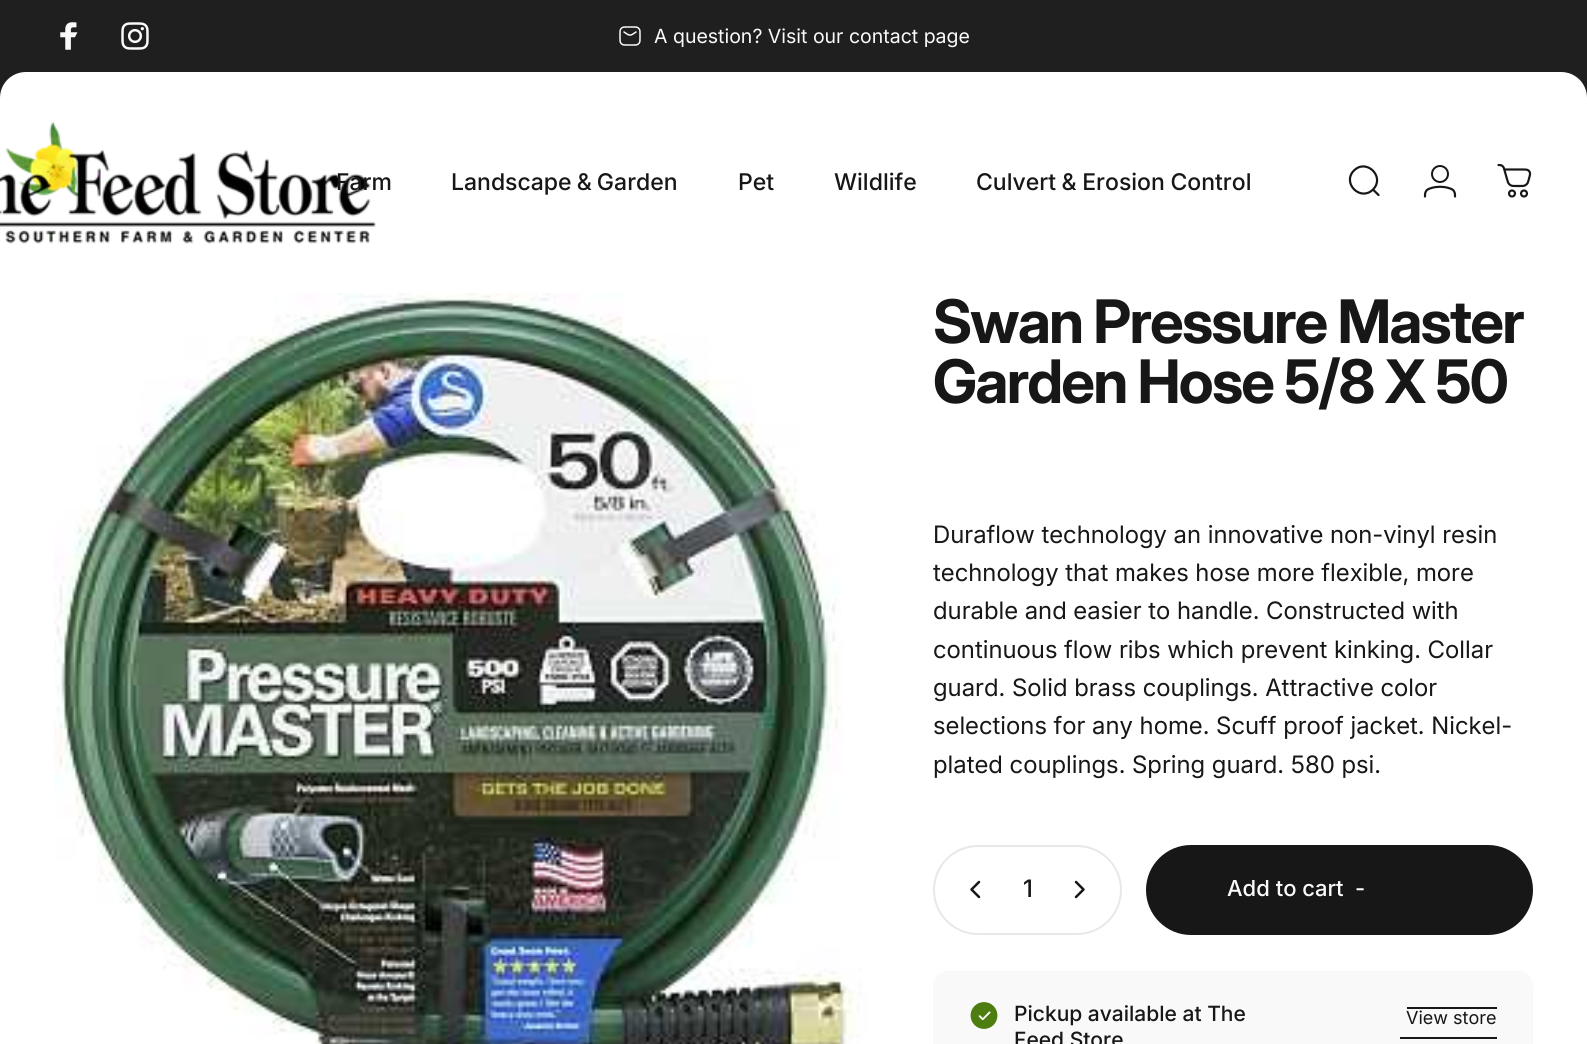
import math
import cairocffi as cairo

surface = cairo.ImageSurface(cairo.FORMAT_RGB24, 1587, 1044)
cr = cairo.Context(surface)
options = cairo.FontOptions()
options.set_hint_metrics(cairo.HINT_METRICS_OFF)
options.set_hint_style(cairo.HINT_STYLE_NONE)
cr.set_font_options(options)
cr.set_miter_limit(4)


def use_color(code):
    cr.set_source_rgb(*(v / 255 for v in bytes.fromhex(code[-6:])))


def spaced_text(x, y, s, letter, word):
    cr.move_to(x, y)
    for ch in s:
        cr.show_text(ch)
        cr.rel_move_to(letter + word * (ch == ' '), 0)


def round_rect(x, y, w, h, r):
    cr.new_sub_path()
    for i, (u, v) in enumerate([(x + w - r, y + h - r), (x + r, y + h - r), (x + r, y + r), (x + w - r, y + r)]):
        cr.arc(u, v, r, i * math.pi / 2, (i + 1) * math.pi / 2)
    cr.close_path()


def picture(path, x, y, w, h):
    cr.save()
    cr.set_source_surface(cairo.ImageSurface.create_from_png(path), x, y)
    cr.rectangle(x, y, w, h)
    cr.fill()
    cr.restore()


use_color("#ffffff")
cr.paint()
use_color("#1f1f1f")
cr.rectangle(0, 0, 1587, 26)
cr.fill()
cr.new_path()
cr.move_to(26, 0)
cr.line_to(1561, 0)
cr.curve_to(1575.5, 0, 1587, 11.5, 1587, 26)
cr.line_to(1587, 98)
cr.line_to(0, 98)
cr.line_to(0, 26)
cr.curve_to(0, 11.5, 11.5, 0, 26, 0)
cr.close_path()
cr.fill()
picture("img1.png", 60, 22, 18, 28)
picture("img2.png", 121, 22, 28, 28)
picture("img3.png", 619, 26, 22, 20)
cr.select_font_face("Inter")
cr.set_font_size(19.5)
use_color("#fafafa")
cr.move_to(654, 43)
cr.show_text("A question? Visit our contact page")
use_color("#ffffff")
cr.new_path()
cr.move_to(26, 72)
cr.line_to(1561, 72)
cr.curve_to(1575.5, 72, 1587, 83.5, 1587, 98)
cr.line_to(1587, 293)
cr.line_to(0, 293)
cr.line_to(0, 98)
cr.curve_to(0, 83.5, 11.5, 72, 26, 72)
cr.close_path()
cr.fill()
picture("img4.png", 0, 121, 376, 123)
cr.select_font_face("Inter Medium")
cr.set_font_size(23)
use_color("#171717")
cr.move_to(336, 190)
cr.show_text("Farm")
spaced_text(451, 190, "Landscape & Garden", 0, -1)
cr.move_to(738, 190)
cr.show_text("Pet")
cr.move_to(834, 190)
cr.show_text("Wildlife")
spaced_text(976, 190, "Culvert & Erosion Control", 0, -0.5)
cr.new_path()
cr.move_to(1378.5, 195)
cr.line_to(1373, 189.5)
cr.move_to(1373, 189.5)
cr.curve_to(1385.5, 177, 1366.5, 158, 1354, 170.5)
cr.curve_to(1341.5, 183, 1360.5, 202, 1373, 189.5)
cr.close_path()
cr.set_line_width(2.2)
cr.set_line_cap(cairo.LINE_CAP_ROUND)
cr.stroke()
picture("img5.png", 1423, 165, 34, 33)
picture("img6.png", 1497, 164, 35, 34)
picture("img7.png", 54, 293, 819, 751)
cr.select_font_face("Inter", cairo.FONT_SLANT_NORMAL, cairo.FONT_WEIGHT_BOLD)
cr.set_font_size(60)
spaced_text(933, 343, "Swan Pressure Master", -1.8, 0)
spaced_text(933, 403, "Garden Hose 5/8 X 50", -1.8, 0)
cr.select_font_face("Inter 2")
cr.set_font_size(24)
cr.move_to(933, 543)
cr.show_text("Duraflow technology an innovative non-vinyl resin")
cr.move_to(933, 581)
cr.show_text("technology that makes hose more flexible, more")
cr.move_to(933, 619)
cr.show_text("durable and easier to handle. Constructed with")
cr.move_to(933, 658)
cr.show_text("continuous flow ribs which prevent kinking. Collar")
cr.move_to(933, 696)
cr.show_text("guard. Solid brass couplings. Attractive color")
cr.move_to(933, 734)
cr.show_text("selections for any home. Scuff proof jacket. Nickel-")
cr.move_to(933, 773)
cr.show_text("plated couplings. Spring guard. 580 psi.")
round_rect(934, 846, 187, 88, 44)
use_color("#e8e8e8")
cr.set_line_width(2)
cr.set_line_cap(cairo.LINE_CAP_BUTT)
cr.stroke()
cr.new_path()
cr.move_to(979, 882)
cr.line_to(971.5, 889.5)
cr.line_to(979, 897)
use_color("#171717")
cr.set_line_width(2.5)
cr.set_line_cap(cairo.LINE_CAP_ROUND)
cr.set_line_join(cairo.LINE_JOIN_ROUND)
cr.stroke()
cr.select_font_face("Inter 2 Medium")
cr.move_to(1023, 897)
cr.show_text("1")
cr.new_path()
cr.move_to(1076, 882)
cr.line_to(1083.5, 889.5)
cr.line_to(1076, 897)
cr.stroke()
round_rect(1147.5, 846.5, 384, 87, 43.5)
cr.fill_preserve()
cr.set_line_width(3)
cr.set_line_cap(cairo.LINE_CAP_BUTT)
cr.set_line_join(cairo.LINE_JOIN_MITER)
cr.stroke()
cr.select_font_face("Inter Medium")
cr.set_font_size(22)
use_color("#fafafa")
cr.move_to(1227, 896)
cr.show_text("Add to cart")
cr.move_to(1355, 896)
cr.show_text("-")
use_color("#f9f9f9")
round_rect(933, 971, 600, 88, 15)
cr.fill()
picture("img8.png", 970, 1002, 28, 27)
cr.set_font_size(21)
use_color("#171717")
cr.move_to(1014, 1021)
cr.show_text("Pickup available at The")
cr.move_to(1014, 1047)
cr.show_text("Feed Store")
cr.select_font_face("Inter")
cr.set_font_size(18)
cr.move_to(1406, 1024)
cr.show_text("View store")
cr.rectangle(1407, 1007, 90, 2)
cr.fill()
cr.rectangle(1400, 1037, 97, 2)
cr.fill()
surface.write_to_png("result.png")
